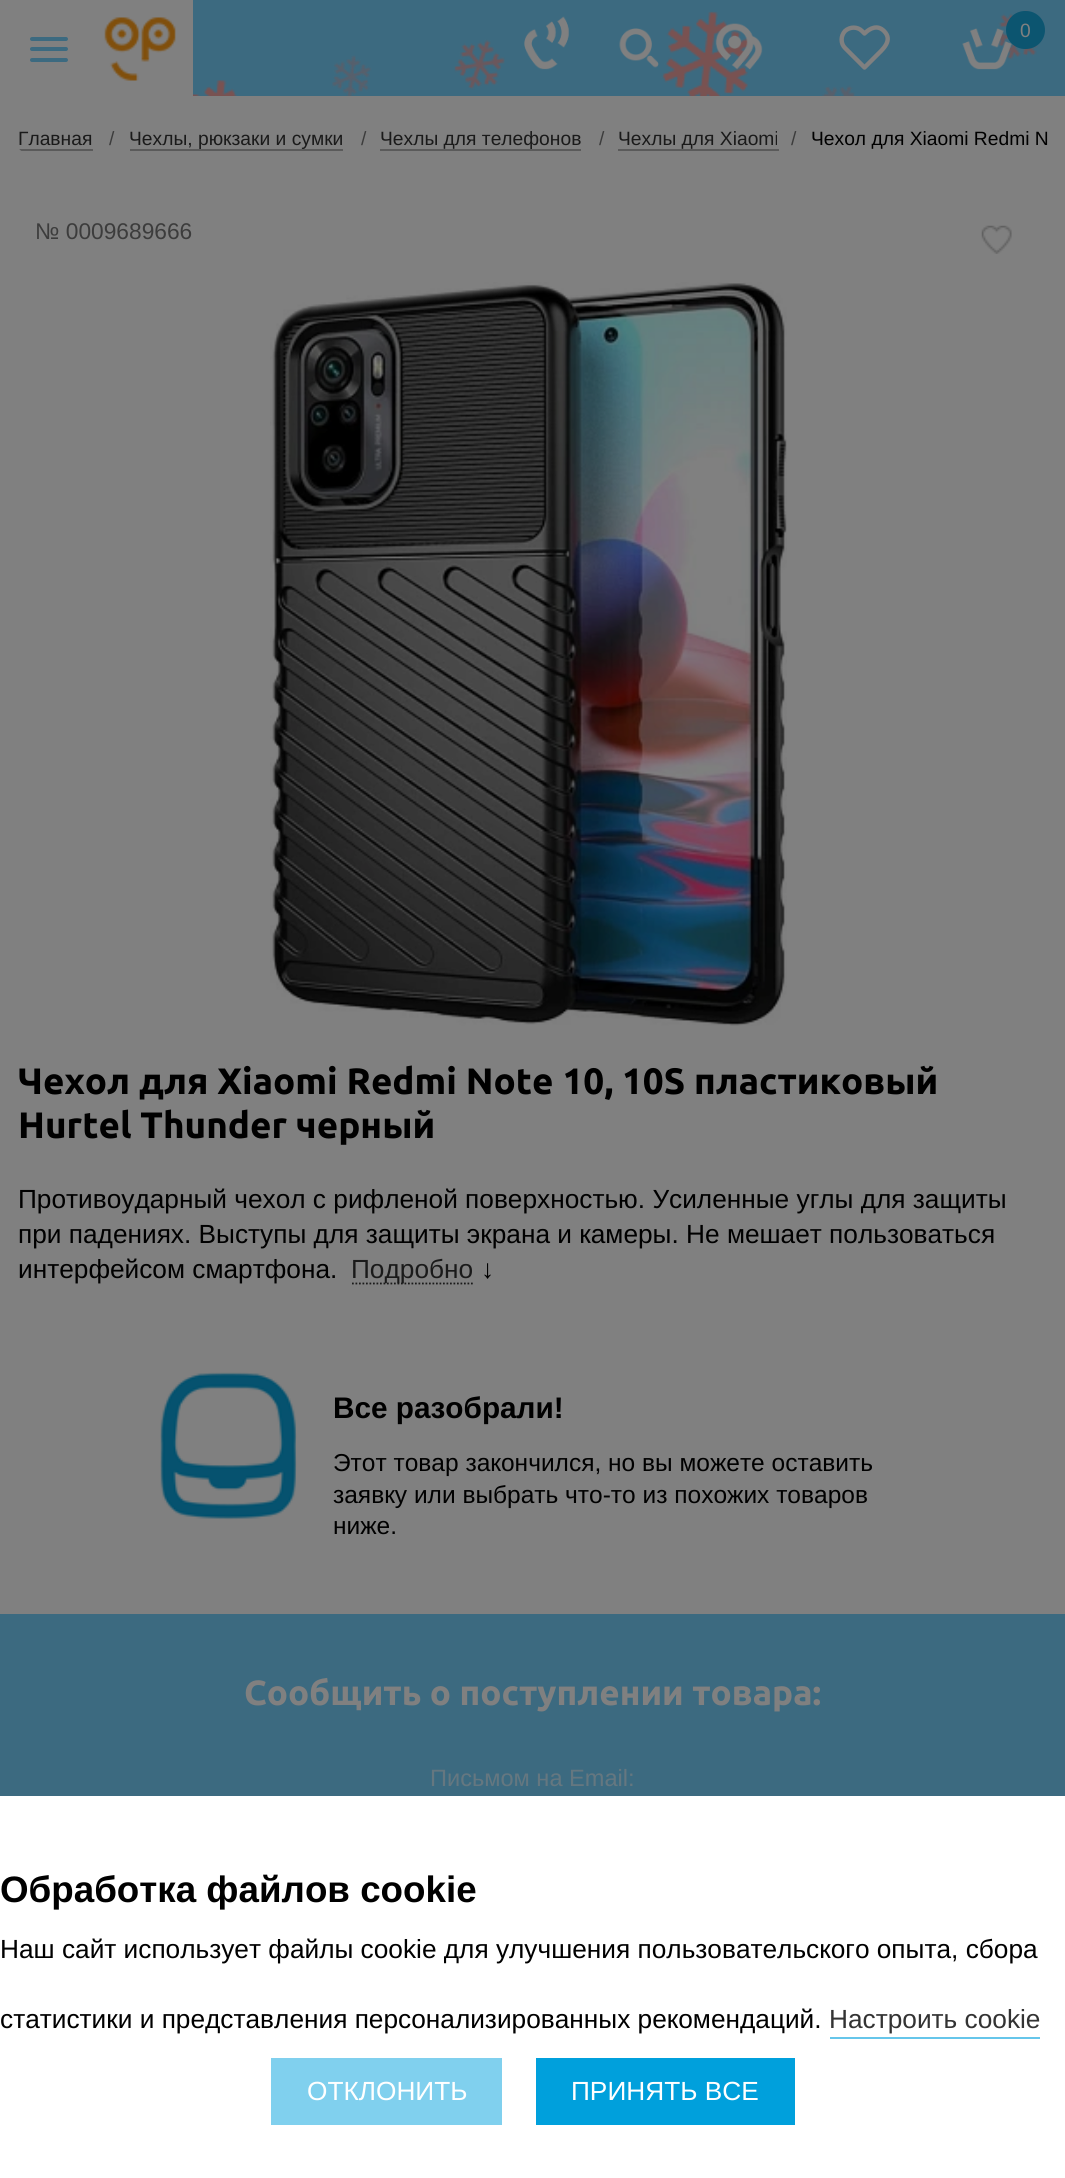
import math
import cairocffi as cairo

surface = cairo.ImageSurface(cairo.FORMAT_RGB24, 1065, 2178)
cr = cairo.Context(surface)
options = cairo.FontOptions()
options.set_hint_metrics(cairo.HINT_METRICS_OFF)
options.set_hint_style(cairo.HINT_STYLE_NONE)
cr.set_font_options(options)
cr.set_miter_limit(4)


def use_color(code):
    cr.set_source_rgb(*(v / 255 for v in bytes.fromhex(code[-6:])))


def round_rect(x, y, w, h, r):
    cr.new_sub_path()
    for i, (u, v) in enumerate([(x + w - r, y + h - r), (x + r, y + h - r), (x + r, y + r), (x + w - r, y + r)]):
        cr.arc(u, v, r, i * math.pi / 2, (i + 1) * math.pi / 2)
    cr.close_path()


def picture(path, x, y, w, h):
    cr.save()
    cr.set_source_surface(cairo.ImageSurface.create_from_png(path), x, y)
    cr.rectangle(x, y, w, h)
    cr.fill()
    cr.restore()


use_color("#3c6a80")
cr.paint()
picture("img1.png", 193, 10, 845, 86)
picture("img2.png", 524, 16, 45, 54)
picture("img3.png", 619, 28, 40, 40)
use_color("#808080")
cr.rectangle(0, 0, 193, 96)
cr.fill()
use_color("#3c6a80")
round_rect(30, 37, 38, 4, 2)
cr.fill()
round_rect(30, 47, 38, 4, 2)
cr.fill()
round_rect(30, 58, 38, 4, 2)
cr.fill()
picture("img4.png", 104, 17, 72, 64)
picture("img5.png", 715, 23, 48, 47)
cr.new_path()
cr.move_to(884, 31)
cr.curve_to(877.5, 24.5, 870, 28, 864.5, 33.5)
cr.line_to(862, 31)
cr.curve_to(857.5, 26.5, 850, 26.5, 845, 31)
cr.curve_to(840.5, 36, 840.5, 43.5, 845, 48)
cr.line_to(864.5, 67.5)
cr.line_to(876, 56)
cr.curve_to(882.5, 49.5, 893.5, 40.5, 884, 31)
cr.close_path()
use_color("#808080")
cr.set_line_width(4.4)
cr.set_line_cap(cairo.LINE_CAP_ROUND)
cr.set_line_join(cairo.LINE_JOIN_ROUND)
cr.stroke()
picture("img6.png", 962, 28, 50, 42)
use_color("#0c5570")
round_rect(1006, 11, 39, 38, 19)
cr.fill()
cr.select_font_face("Liberation Sans")
cr.set_font_size(19.25)
use_color("#808080")
cr.move_to(1020, 37)
cr.show_text("0")
cr.rectangle(0, 96, 1065, 1518)
cr.fill()
use_color("#1a1a1a")
cr.move_to(18, 145)
cr.show_text("Главная")
cr.save()
round_rect(18, 96, 1030, 56, 7)
cr.clip()
use_color("#5a5a5a")
cr.rectangle(18, 149, 75, 2)
cr.fill()
cr.restore()
use_color("#3c3c3c")
cr.move_to(109, 145)
cr.show_text("/")
use_color("#1a1a1a")
cr.move_to(129, 145)
cr.show_text("Чехлы, рюкзаки и сумки")
use_color("#5a5a5a")
cr.rectangle(130, 149, 213, 2)
cr.fill()
use_color("#3c3c3c")
cr.move_to(361, 145)
cr.show_text("/")
use_color("#1a1a1a")
cr.move_to(380, 145)
cr.show_text("Чехлы для телефонов")
use_color("#5a5a5a")
cr.rectangle(380, 149, 201, 2)
cr.fill()
use_color("#3c3c3c")
cr.move_to(599, 145)
cr.show_text("/")
use_color("#1a1a1a")
cr.move_to(618, 145)
cr.show_text("Чехлы для Xiaomi")
use_color("#5a5a5a")
cr.rectangle(618, 149, 161, 2)
cr.fill()
use_color("#3c3c3c")
cr.move_to(791, 145)
cr.show_text("/")
use_color("#000000")
cr.move_to(811, 145)
cr.show_text("Чехол для Xiaomi Redmi N")
cr.set_font_size(22.75)
use_color("#3c3c3c")
cr.move_to(35, 239)
cr.show_text("№ 0009689666")
picture("img7.png", 981, 225, 31, 29)
picture("img8.png", 270, 282, 517, 744)
cr.select_font_face("Ubuntu", cairo.FONT_SLANT_NORMAL, cairo.FONT_WEIGHT_BOLD)
cr.set_font_size(36.75)
use_color("#000000")
cr.move_to(18, 1094)
cr.show_text("Чехол для Xiaomi Redmi Note 10, 10S пластиковый")
cr.move_to(18, 1138)
cr.show_text("Hurtel Thunder черный")
cr.select_font_face("Liberation Sans")
cr.set_font_size(26.25)
cr.move_to(18, 1208)
cr.show_text("Противоударный чехол с рифленой поверхностью. Усиленные углы для защиты")
cr.move_to(18, 1243)
cr.show_text("при падениях. Выступы для защиты экрана и камеры. Не мешает пользоваться")
cr.move_to(18, 1278)
cr.show_text("интерфейсом смартфона.")
cr.new_path()
cr.move_to(352, 1283.5)
cr.line_to(474, 1283.5)
use_color("#1a1a1a")
cr.set_line_width(1.8)
cr.set_line_cap(cairo.LINE_CAP_BUTT)
cr.set_line_join(cairo.LINE_JOIN_MITER)
cr.set_dash([1.75, 1.75])
cr.stroke()
cr.move_to(351, 1278)
cr.show_text("Подробно")
use_color("#000000")
cr.move_to(481, 1278)
cr.show_text("↓")
picture("img9.png", 160, 1372, 137, 148)
cr.select_font_face("Liberation Sans", cairo.FONT_SLANT_NORMAL, cairo.FONT_WEIGHT_BOLD)
cr.set_font_size(29.75)
cr.move_to(333, 1418)
cr.show_text("Все разобрали!")
cr.select_font_face("Liberation Sans")
cr.set_font_size(24.5)
cr.move_to(333, 1471)
cr.show_text("Этот товар закончился, но вы можете оставить")
cr.move_to(333, 1503)
cr.show_text("заявку или выбрать что-то из похожих товаров")
cr.move_to(333, 1534)
cr.show_text("ниже.")
cr.select_font_face("Ubuntu", cairo.FONT_SLANT_NORMAL, cairo.FONT_WEIGHT_BOLD)
cr.set_font_size(35)
use_color("#808080")
cr.move_to(244, 1705)
cr.show_text("Cообщить о поступлении товара:")
cr.select_font_face("Liberation Sans")
cr.set_font_size(23.6)
use_color("#657780")
cr.move_to(430, 1786)
cr.show_text("Письмом на Email:")
use_color("#ffffff")
cr.rectangle(0, 1796, 1065, 382)
cr.fill()
cr.select_font_face("Liberation Sans", cairo.FONT_SLANT_NORMAL, cairo.FONT_WEIGHT_BOLD)
cr.set_font_size(36.75)
use_color("#000000")
cr.move_to(0, 1902)
cr.show_text("Обработка файлов cookie")
cr.select_font_face("Liberation Sans")
cr.set_font_size(26.25)
cr.move_to(0, 1958)
cr.show_text("Наш сайт использует файлы cookie для улучшения пользовательского опыта, сбора")
cr.move_to(0, 2028)
cr.show_text("статистики и представления персонализированных рекомендаций.")
use_color("#66c6ea")
cr.rectangle(830, 2037, 210, 2)
cr.fill()
use_color("#333333")
cr.move_to(829, 2028)
cr.show_text("Настроить cookie")
use_color("#80d0ee")
cr.rectangle(271, 2058, 231, 67)
cr.fill()
use_color("#ffffff")
cr.move_to(307, 2100)
cr.show_text("ОТКЛОНИТЬ")
use_color("#00a0dc")
cr.rectangle(536, 2058, 259, 67)
cr.fill()
use_color("#ffffff")
cr.move_to(571, 2100)
cr.show_text("ПРИНЯТЬ ВСЕ")
surface.write_to_png("result.png")
